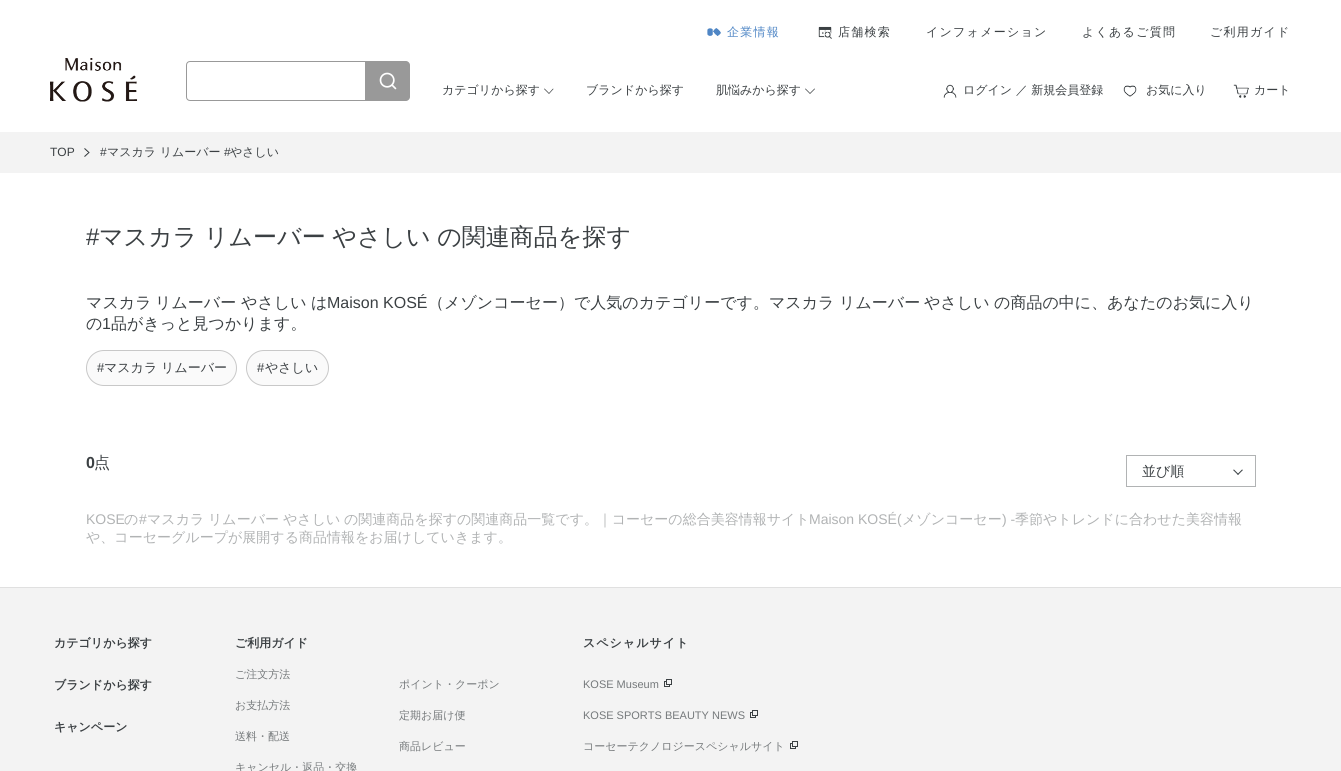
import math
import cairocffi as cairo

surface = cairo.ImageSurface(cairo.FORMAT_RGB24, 1341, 771)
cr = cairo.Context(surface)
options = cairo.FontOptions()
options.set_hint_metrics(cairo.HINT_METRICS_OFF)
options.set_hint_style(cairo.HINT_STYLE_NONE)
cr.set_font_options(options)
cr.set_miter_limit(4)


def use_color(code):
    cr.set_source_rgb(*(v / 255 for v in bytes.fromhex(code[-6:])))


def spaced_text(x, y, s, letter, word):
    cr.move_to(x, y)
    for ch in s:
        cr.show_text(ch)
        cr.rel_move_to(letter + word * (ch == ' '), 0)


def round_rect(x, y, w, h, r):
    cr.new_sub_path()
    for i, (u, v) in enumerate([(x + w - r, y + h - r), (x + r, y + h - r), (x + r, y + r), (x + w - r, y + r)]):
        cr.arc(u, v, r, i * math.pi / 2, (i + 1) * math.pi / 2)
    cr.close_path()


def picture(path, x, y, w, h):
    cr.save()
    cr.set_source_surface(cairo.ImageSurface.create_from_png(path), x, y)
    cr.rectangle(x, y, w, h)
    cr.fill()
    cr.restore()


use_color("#ffffff")
cr.paint()
picture("img1.png", 50, 58, 88, 44)
picture("img2.png", 707, 28, 14, 8)
cr.select_font_face("WenQuanYi Zen Hei Medium")
cr.set_font_size(12)
use_color("#4f86c5")
spaced_text(727, 36, "企業情報", 1.25, 0)
picture("img3.png", 818, 26, 14, 13)
use_color("#3b4043")
spaced_text(838, 36, "店舗検索", 1.25, 0)
spaced_text(926, 36, "インフォメーション", 1.25, 0)
spaced_text(1082, 36, "よくあるご質問", 1.25, 0)
spaced_text(1210, 36, "ご利用ガイド", 1.25, 0)
cr.new_path()
cr.move_to(190, 61.5)
cr.line_to(365.5, 61.5)
cr.line_to(365.5, 100.5)
cr.line_to(190, 100.5)
cr.curve_to(188, 100.5, 186.5, 99, 186.5, 97)
cr.line_to(186.5, 65)
cr.curve_to(186.5, 63, 188, 61.5, 190, 61.5)
cr.close_path()
use_color("#999999")
cr.set_line_width(1)
cr.stroke()
cr.new_path()
cr.move_to(366, 61)
cr.line_to(406, 61)
cr.curve_to(408, 61, 410, 63, 410, 65)
cr.line_to(410, 97)
cr.curve_to(410, 99, 408, 101, 406, 101)
cr.line_to(366, 101)
cr.close_path()
cr.fill()
picture("img4.png", 379, 72, 18, 18)
use_color("#3b4043")
cr.move_to(442, 94)
cr.show_text("カテゴリから探す")
use_color("#3d4143")
cr.new_path()
cr.move_to(549, 84)
cr.line_to(553.5, 89)
cr.line_to(549, 94)
cr.line_to(544, 89)
cr.close_path()
cr.fill()
use_color("#ffffff")
cr.new_path()
cr.move_to(549, 83)
cr.line_to(553.5, 88)
cr.line_to(549, 93)
cr.line_to(544, 88)
cr.close_path()
cr.fill()
use_color("#3b4043")
cr.move_to(586, 94)
cr.show_text("ブランドから探す")
cr.move_to(716, 94)
cr.show_text("肌悩みから探す")
use_color("#3d4143")
cr.new_path()
cr.move_to(810, 84)
cr.line_to(815, 89)
cr.line_to(810, 94)
cr.line_to(805, 89)
cr.close_path()
cr.fill()
use_color("#ffffff")
cr.new_path()
cr.move_to(810, 83)
cr.line_to(815, 88)
cr.line_to(810, 93)
cr.line_to(805, 88)
cr.close_path()
cr.fill()
picture("img5.png", 943, 84, 14, 14)
use_color("#3b4043")
cr.move_to(963, 94)
cr.show_text("ログイン ／ 新規会員登録")
picture("img6.png", 1123, 85, 14, 12)
cr.move_to(1146, 94)
cr.show_text("お気に入り")
picture("img7.png", 1233, 84, 16, 14)
cr.move_to(1254, 94)
cr.show_text("カート")
use_color("#f3f3f3")
cr.rectangle(0, 132, 1341, 41)
cr.fill()
cr.select_font_face("Liberation Sans")
use_color("#3b4043")
cr.move_to(50, 156)
cr.show_text("TOP")
picture("img8.png", 84, 148, 6, 9)
cr.move_to(100, 156)
cr.show_text("#")
cr.select_font_face("WenQuanYi Zen Hei Medium")
cr.move_to(107, 156)
cr.show_text("マスカラ リムーバー")
cr.select_font_face("Liberation Sans")
cr.move_to(224, 156)
cr.show_text("#")
cr.select_font_face("WenQuanYi Zen Hei Medium")
cr.move_to(230, 156)
cr.show_text("やさしい")
cr.select_font_face("Liberation Sans")
cr.set_font_size(24)
cr.move_to(86, 245)
cr.show_text("#")
cr.select_font_face("WenQuanYi Zen Hei Medium")
spaced_text(99, 245, "マスカラ リムーバー やさしい の関連商品を探す", 0, -0.5)
cr.set_font_size(16)
cr.move_to(86, 308)
cr.show_text("マスカラ")
cr.move_to(155, 308)
cr.show_text("リムーバー")
cr.move_to(241, 308)
cr.show_text("やさしい")
cr.move_to(311, 308)
cr.show_text("は")
cr.select_font_face("Liberation Sans")
cr.move_to(327, 308)
cr.show_text("Maison KOSÉ")
cr.select_font_face("WenQuanYi Zen Hei Medium")
cr.move_to(428, 308)
cr.show_text("（メゾンコーセー）で人気のカテゴリーです。マスカラ")
cr.move_to(839, 308)
cr.show_text("リムーバー")
cr.move_to(924, 308)
cr.show_text("やさしい")
cr.move_to(994, 308)
cr.show_text("の商品の中に、あなたのお気に入り")
cr.move_to(86, 329)
cr.show_text("の")
cr.select_font_face("Liberation Sans")
cr.move_to(102, 329)
cr.show_text("1")
cr.select_font_face("WenQuanYi Zen Hei Medium")
cr.move_to(111, 329)
cr.show_text("品がきっと見つかります。")
use_color("#fafafa")
round_rect(86.5, 350.5, 150, 35, 17.5)
cr.fill_preserve()
use_color("#c8c8c8")
cr.stroke()
cr.select_font_face("Liberation Sans")
cr.set_font_size(13)
use_color("#3b4043")
cr.move_to(97, 372)
cr.show_text("#")
cr.select_font_face("WenQuanYi Zen Hei Medium")
cr.move_to(104, 372)
cr.show_text("マスカラ リムーバー")
use_color("#fafafa")
round_rect(246.5, 350.5, 82, 35, 17.5)
cr.fill_preserve()
use_color("#c8c8c8")
cr.stroke()
cr.select_font_face("Liberation Sans")
use_color("#3b4043")
cr.move_to(257, 372)
cr.show_text("#")
cr.select_font_face("WenQuanYi Zen Hei Medium")
cr.move_to(265, 372)
cr.show_text("やさしい")
cr.select_font_face("Liberation Sans", cairo.FONT_SLANT_NORMAL, cairo.FONT_WEIGHT_BOLD)
cr.set_font_size(16)
cr.move_to(86, 468)
cr.show_text("0")
cr.select_font_face("WenQuanYi Zen Hei Medium")
cr.move_to(94, 468)
cr.show_text("点")
cr.rectangle(1126.5, 455.5, 129, 31)
use_color("#b1b3b4")
cr.stroke()
cr.set_font_size(14)
use_color("#3b4043")
cr.move_to(1142, 476)
cr.show_text("並び順")
use_color("#3e4548")
cr.new_path()
cr.move_to(1242, 469.5)
cr.line_to(1243, 470)
cr.line_to(1238, 475)
cr.line_to(1237.5, 474)
cr.close_path()
cr.fill()
cr.new_path()
cr.move_to(1234, 469.5)
cr.line_to(1238.5, 474)
cr.line_to(1238, 475)
cr.line_to(1233, 470)
cr.close_path()
cr.fill()
cr.select_font_face("Liberation Sans")
use_color("#b1b3b4")
cr.move_to(86, 524)
cr.show_text("KOSE")
cr.select_font_face("WenQuanYi Zen Hei Medium")
cr.move_to(124, 524)
cr.show_text("の")
cr.select_font_face("Liberation Sans")
cr.move_to(139, 524)
cr.show_text("#")
cr.select_font_face("WenQuanYi Zen Hei Medium")
cr.move_to(147, 524)
cr.show_text("マスカラ")
cr.move_to(208, 524)
cr.show_text("リムーバー")
cr.move_to(283, 524)
cr.show_text("やさしい")
cr.move_to(344, 524)
cr.show_text("の関連商品を探すの関連商品一覧です。｜コーセーの総合美容情報サイト")
cr.select_font_face("Liberation Sans")
cr.move_to(809, 524)
cr.show_text("Maison KOSÉ(")
cr.select_font_face("WenQuanYi Zen Hei Medium")
cr.move_to(902, 524)
cr.show_text("メゾンコーセー")
cr.select_font_face("Liberation Sans")
cr.move_to(1002, 524)
cr.show_text(") -")
cr.select_font_face("WenQuanYi Zen Hei Medium")
cr.move_to(1015, 524)
cr.show_text("季節やトレンドに合わせた美容情報")
cr.move_to(86, 542)
cr.show_text("や、コーセーグループが展開する商品情報をお届けしていきます。")
use_color("#f3f3f3")
cr.rectangle(0, 588, 1341, 183)
cr.fill()
use_color("#e0e0e0")
cr.rectangle(0, 587, 1341, 1)
cr.fill()
cr.select_font_face("WenQuanYi Zen Hei", cairo.FONT_SLANT_NORMAL, cairo.FONT_WEIGHT_BOLD)
cr.set_font_size(12)
use_color("#3b4043")
cr.move_to(54, 647)
cr.show_text("カテゴリから探す")
cr.move_to(54, 689)
cr.show_text("ブランドから探す")
cr.move_to(54, 731)
cr.show_text("キャンペーン")
cr.move_to(235, 647)
cr.show_text("ご利用ガイド")
cr.select_font_face("WenQuanYi Zen Hei Medium")
cr.set_font_size(11)
use_color("#75797b")
cr.move_to(235, 678)
cr.show_text("ご注文方法")
cr.move_to(235, 709)
cr.show_text("お支払方法")
cr.move_to(235, 740)
cr.show_text("送料・配送")
cr.move_to(235, 771)
cr.show_text("キャンセル・返品・交換")
cr.move_to(399, 688)
cr.show_text("ポイント・クーポン")
cr.move_to(399, 719)
cr.show_text("定期お届け便")
cr.move_to(399, 750)
cr.show_text("商品レビュー")
cr.select_font_face("WenQuanYi Zen Hei", cairo.FONT_SLANT_NORMAL, cairo.FONT_WEIGHT_BOLD)
cr.set_font_size(12)
use_color("#3b4043")
spaced_text(583, 647, "スペシャルサイト", 1, 0)
cr.select_font_face("Liberation Sans")
cr.set_font_size(11)
use_color("#75797b")
cr.move_to(583, 688)
cr.show_text("KOSE Museum")
cr.rectangle(664.5, 681.5, 5, 5)
use_color("#3b4043")
cr.stroke()
use_color("#f3f3f3")
cr.rectangle(666, 681, 6, 3)
cr.fill()
cr.rectangle(666.5, 679.5, 5, 5)
use_color("#3b4043")
cr.stroke()
use_color("#75797b")
cr.move_to(583, 719)
cr.show_text("KOSE SPORTS BEAUTY NEWS")
cr.rectangle(750.5, 712.5, 5, 5)
use_color("#3b4043")
cr.stroke()
use_color("#f3f3f3")
cr.rectangle(752, 712, 6, 3)
cr.fill()
cr.rectangle(752.5, 710.5, 5, 5)
use_color("#3b4043")
cr.stroke()
cr.select_font_face("WenQuanYi Zen Hei Medium")
use_color("#75797b")
cr.move_to(583, 750)
cr.show_text("コーセーテクノロジースペシャルサイト")
cr.rectangle(790.5, 743.5, 5, 5)
use_color("#3b4043")
cr.stroke()
use_color("#f3f3f3")
cr.rectangle(792, 743, 6, 3)
cr.fill()
cr.rectangle(792.5, 741.5, 5, 5)
use_color("#3b4043")
cr.stroke()
surface.write_to_png("result.png")
